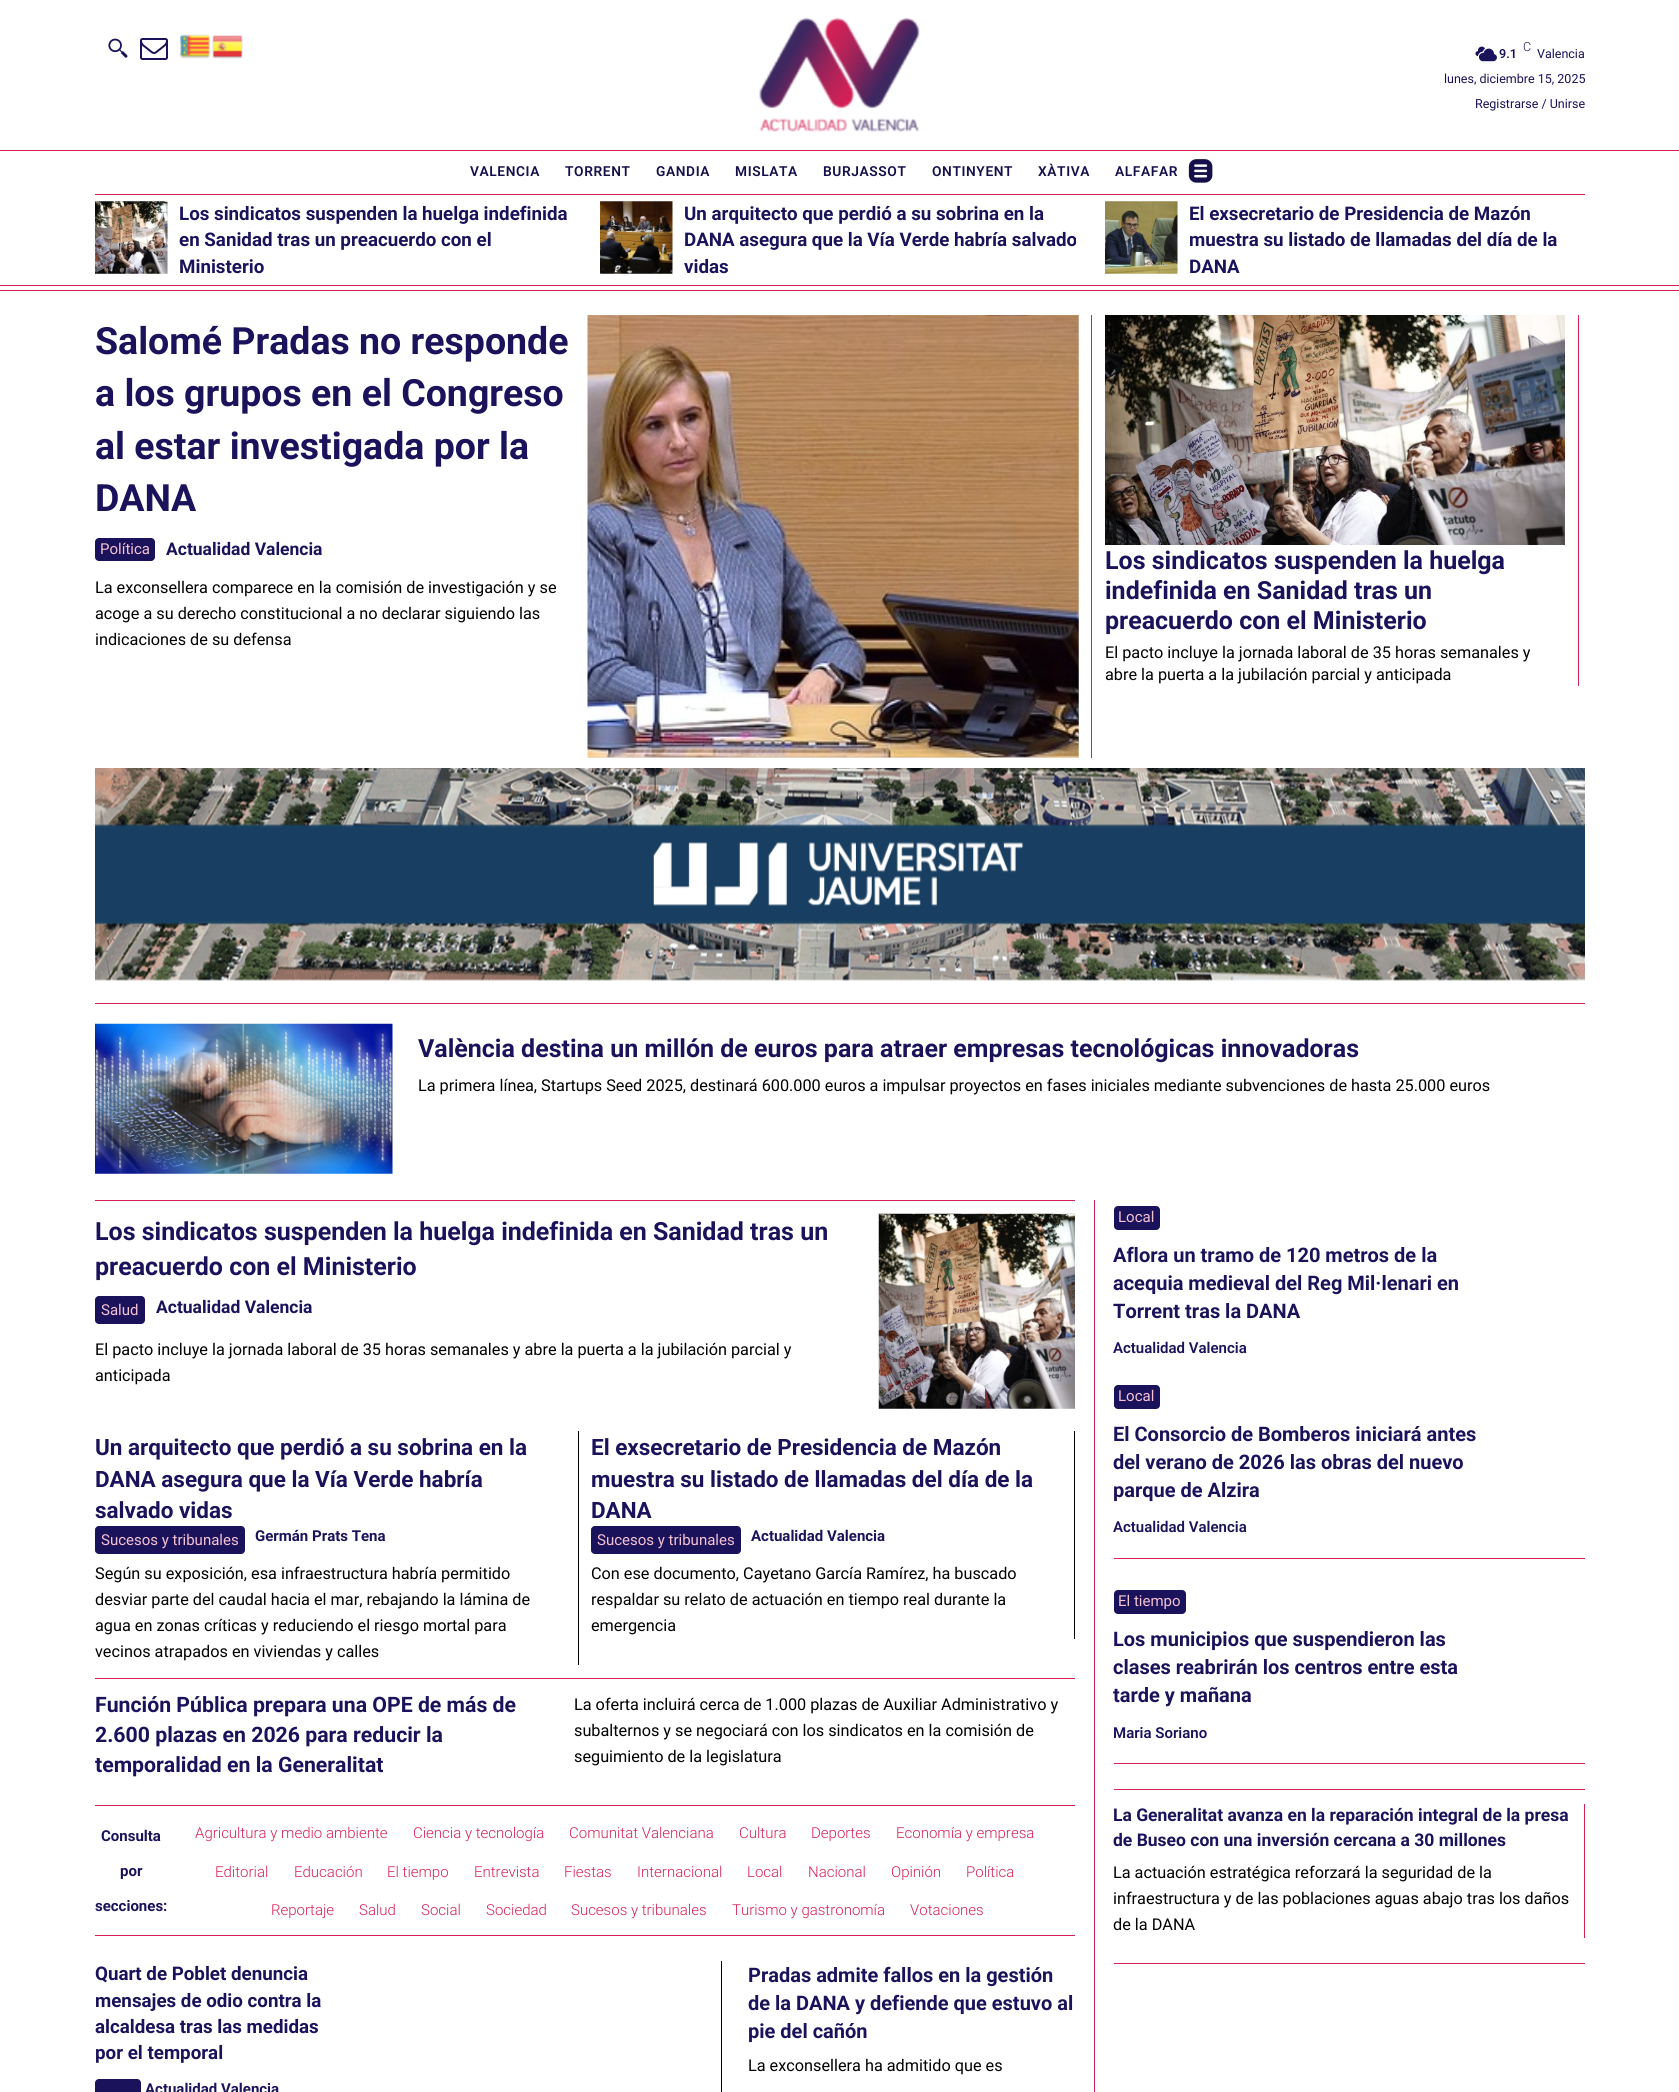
import math
import cairocffi as cairo

surface = cairo.ImageSurface(cairo.FORMAT_RGB24, 1679, 2092)
cr = cairo.Context(surface)
options = cairo.FontOptions()
options.set_hint_metrics(cairo.HINT_METRICS_OFF)
options.set_hint_style(cairo.HINT_STYLE_NONE)
cr.set_font_options(options)
cr.set_miter_limit(4)


def use_color(code):
    cr.set_source_rgb(*(v / 255 for v in bytes.fromhex(code[-6:])))


def spaced_text(x, y, s, letter, word):
    cr.move_to(x, y)
    for ch in s:
        cr.show_text(ch)
        cr.rel_move_to(letter + word * (ch == ' '), 0)


def round_rect(x, y, w, h, r):
    cr.new_sub_path()
    for i, (u, v) in enumerate([(x + w - r, y + h - r), (x + r, y + h - r), (x + r, y + r), (x + w - r, y + r)]):
        cr.arc(u, v, r, i * math.pi / 2, (i + 1) * math.pi / 2)
    cr.close_path()


def picture(path, x, y, w, h):
    cr.save()
    cr.set_source_surface(cairo.ImageSurface.create_from_png(path), x, y)
    cr.rectangle(x, y, w, h)
    cr.fill()
    cr.restore()


use_color("#ffffff")
cr.paint()
picture("img1.png", 108, 38, 20, 20)
picture("img2.png", 140, 38, 28, 22)
picture("img3.png", 180, 34, 30, 25)
picture("img4.png", 212, 35, 31, 24)
picture("img5.png", 759, 17, 161, 115)
picture("img6.png", 1475, 46, 22, 16)
cr.select_font_face("Roboto Light")
cr.set_font_size(12.5)
use_color("#1a125b")
cr.move_to(1523, 51)
cr.show_text("C")
cr.select_font_face("Roboto SemiBold")
cr.move_to(1499, 58)
cr.show_text("9.1")
cr.select_font_face("Roboto")
cr.move_to(1537, 58)
cr.show_text("Valencia")
cr.move_to(1444, 83)
cr.show_text("lunes, diciembre 15, 2025")
cr.move_to(1475, 108)
cr.show_text("Registrarse / Unirse")
use_color("#d52056")
cr.rectangle(0, 150, 1679, 1)
cr.fill()
cr.select_font_face("Roboto SemiBold")
cr.set_font_size(13.75)
use_color("#150f4b")
spaced_text(470, 176, "VALENCIA", 0.6, 0)
spaced_text(565, 176, "TORRENT", 0.6, 0)
spaced_text(656, 176, "GANDIA", 0.6, 0)
spaced_text(735, 176, "MISLATA", 0.6, 0)
spaced_text(823, 176, "BURJASSOT", 0.6, 0)
spaced_text(932, 176, "ONTINYENT", 0.6, 0)
spaced_text(1038, 176, "XÀTIVA", 0.6, 0)
spaced_text(1115, 176, "ALFAFAR", 0.6, 0)
picture("img7.png", 1188, 159, 25, 24)
use_color("#d52056")
cr.rectangle(95, 194, 1490, 1)
cr.fill()
picture("img8.png", 95, 201, 73, 73)
cr.select_font_face("Roboto", cairo.FONT_SLANT_NORMAL, cairo.FONT_WEIGHT_BOLD)
cr.set_font_size(18.75)
use_color("#1a125b")
cr.move_to(179, 220)
cr.show_text("Los sindicatos suspenden la huelga indefinida")
cr.move_to(179, 246)
cr.show_text("en Sanidad tras un preacuerdo con el")
cr.move_to(179, 273)
cr.show_text("Ministerio")
picture("img9.png", 600, 201, 73, 73)
cr.move_to(684, 220)
cr.show_text("Un arquitecto que perdió a su sobrina en la")
cr.move_to(684, 246)
cr.show_text("DANA asegura que la Vía Verde habría salvado")
cr.move_to(684, 273)
cr.show_text("vidas")
picture("img10.png", 1105, 201, 73, 73)
cr.move_to(1189, 220)
cr.show_text("El exsecretario de Presidencia de Mazón")
cr.move_to(1189, 246)
cr.show_text("muestra su listado de llamadas del día de la")
cr.move_to(1189, 273)
cr.show_text("DANA")
use_color("#d52056")
cr.rectangle(0, 285, 1679, 1)
cr.fill()
cr.rectangle(0, 290, 1679, 1)
cr.fill()
cr.rectangle(1091, 315, 1, 443)
cr.fill()
cr.set_font_size(37.5)
use_color("#1a125b")
cr.move_to(95, 354)
cr.show_text("Salomé Pradas no responde")
cr.move_to(95, 406)
cr.show_text("a los grupos en el Congreso")
cr.move_to(95, 459)
cr.show_text("al estar investigada por la")
cr.move_to(95, 511)
cr.show_text("DANA")
round_rect(95, 538, 60, 23, 4)
cr.fill()
cr.select_font_face("Roboto")
cr.set_font_size(15)
use_color("#f6c3d2")
cr.move_to(100, 554)
cr.show_text("Política")
cr.select_font_face("Roboto", cairo.FONT_SLANT_NORMAL, cairo.FONT_WEIGHT_BOLD)
cr.set_font_size(17.5)
use_color("#1a125b")
cr.move_to(166, 555)
cr.show_text("Actualidad Valencia")
cr.select_font_face("Roboto")
cr.set_font_size(16.25)
use_color("#000000")
cr.move_to(95, 593)
cr.show_text("La exconsellera comparece en la comisión de investigación y se")
cr.move_to(95, 619)
cr.show_text("acoge a su derecho constitucional a no declarar siguiendo las")
cr.move_to(95, 645)
cr.show_text("indicaciones de su defensa")
picture("img11.png", 587, 315, 492, 443)
use_color("#d52056")
cr.rectangle(1578, 315, 1, 371)
cr.fill()
picture("img12.png", 1105, 315, 460, 230)
cr.select_font_face("Roboto", cairo.FONT_SLANT_NORMAL, cairo.FONT_WEIGHT_BOLD)
cr.set_font_size(25)
use_color("#1a125b")
cr.move_to(1105, 569)
cr.show_text("Los sindicatos suspenden la huelga")
cr.move_to(1105, 599)
cr.show_text("indefinida en Sanidad tras un")
cr.move_to(1105, 629)
cr.show_text("preacuerdo con el Ministerio")
cr.select_font_face("Roboto")
cr.set_font_size(16.25)
use_color("#000000")
cr.move_to(1105, 658)
cr.show_text("El pacto incluye la jornada laboral de 35 horas semanales y")
cr.move_to(1105, 680)
cr.show_text("abre la puerta a la jubilación parcial y anticipada")
picture("img13.png", 95, 768, 1490, 213)
use_color("#d52156")
cr.rectangle(95, 1003, 1490, 1)
cr.fill()
picture("img14.png", 95, 1023, 298, 151)
cr.select_font_face("Roboto", cairo.FONT_SLANT_NORMAL, cairo.FONT_WEIGHT_BOLD)
cr.set_font_size(25)
use_color("#1a125b")
cr.move_to(418, 1057)
cr.show_text("València destina un millón de euros para atraer empresas tecnológicas innovadoras")
cr.select_font_face("Roboto")
cr.set_font_size(16.25)
use_color("#000000")
cr.move_to(418, 1091)
cr.show_text("La primera línea, Startups Seed 2025, destinará 600.000 euros a impulsar proyectos en fases iniciales mediante subvenciones de hasta 25.000 euros")
use_color("#d52156")
cr.rectangle(1094, 1200, 1, 892)
cr.fill()
cr.rectangle(95, 1200, 980, 1)
cr.fill()
cr.rectangle(95, 1678, 980, 1)
cr.fill()
cr.select_font_face("Roboto", cairo.FONT_SLANT_NORMAL, cairo.FONT_WEIGHT_BOLD)
cr.set_font_size(25)
use_color("#1a125b")
cr.move_to(95, 1240)
cr.show_text("Los sindicatos suspenden la huelga indefinida en Sanidad tras un")
cr.move_to(95, 1275)
cr.show_text("preacuerdo con el Ministerio")
round_rect(95, 1296, 50, 28, 4)
cr.fill()
cr.select_font_face("Roboto")
cr.set_font_size(15)
use_color("#f6c3d2")
cr.move_to(101, 1315)
cr.show_text("Salud")
cr.select_font_face("Roboto", cairo.FONT_SLANT_NORMAL, cairo.FONT_WEIGHT_BOLD)
cr.set_font_size(17.5)
use_color("#1a125b")
cr.move_to(156, 1313)
cr.show_text("Actualidad Valencia")
cr.select_font_face("Roboto")
cr.set_font_size(16.25)
use_color("#000000")
cr.move_to(95, 1355)
cr.show_text("El pacto incluye la jornada laboral de 35 horas semanales y abre la puerta a la jubilación parcial y")
cr.move_to(95, 1381)
cr.show_text("anticipada")
picture("img15.png", 878, 1213, 197, 196)
cr.rectangle(578, 1431, 1, 234)
cr.fill()
cr.select_font_face("Roboto", cairo.FONT_SLANT_NORMAL, cairo.FONT_WEIGHT_BOLD)
cr.set_font_size(22.5)
use_color("#1a125b")
cr.move_to(95, 1455)
cr.show_text("Un arquitecto que perdió a su sobrina en la")
cr.move_to(95, 1487)
cr.show_text("DANA asegura que la Vía Verde habría")
cr.move_to(95, 1518)
cr.show_text("salvado vidas")
round_rect(95, 1526, 150, 28, 4)
cr.fill()
cr.select_font_face("Roboto")
cr.set_font_size(15)
use_color("#f6c3d2")
cr.move_to(101, 1545)
cr.show_text("Sucesos y tribunales")
cr.select_font_face("Roboto", cairo.FONT_SLANT_NORMAL, cairo.FONT_WEIGHT_BOLD)
use_color("#1a125b")
cr.move_to(255, 1541)
cr.show_text("Germán Prats Tena")
cr.select_font_face("Roboto")
cr.set_font_size(16.25)
use_color("#000000")
cr.move_to(95, 1579)
cr.show_text("Según su exposición, esa infraestructura habría permitido")
cr.move_to(95, 1605)
cr.show_text("desviar parte del caudal hacia el mar, rebajando la lámina de")
cr.move_to(95, 1631)
cr.show_text("agua en zonas críticas y reduciendo el riesgo mortal para")
cr.move_to(95, 1657)
cr.show_text("vecinos atrapados en viviendas y calles")
cr.rectangle(1074, 1431, 1, 208)
cr.fill()
cr.select_font_face("Roboto", cairo.FONT_SLANT_NORMAL, cairo.FONT_WEIGHT_BOLD)
cr.set_font_size(22.5)
use_color("#1a125b")
cr.move_to(591, 1455)
cr.show_text("El exsecretario de Presidencia de Mazón")
cr.move_to(591, 1487)
cr.show_text("muestra su listado de llamadas del día de la")
cr.move_to(591, 1518)
cr.show_text("DANA")
round_rect(591, 1526, 150, 28, 4)
cr.fill()
cr.select_font_face("Roboto")
cr.set_font_size(15)
use_color("#f6c3d2")
cr.move_to(597, 1545)
cr.show_text("Sucesos y tribunales")
cr.select_font_face("Roboto", cairo.FONT_SLANT_NORMAL, cairo.FONT_WEIGHT_BOLD)
use_color("#1a125b")
cr.move_to(751, 1541)
cr.show_text("Actualidad Valencia")
cr.select_font_face("Roboto")
cr.set_font_size(16.25)
use_color("#000000")
cr.move_to(591, 1579)
cr.show_text("Con ese documento, Cayetano García Ramírez, ha buscado")
cr.move_to(591, 1605)
cr.show_text("respaldar su relato de actuación en tiempo real durante la")
cr.move_to(591, 1631)
cr.show_text("emergencia")
use_color("#d52156")
cr.rectangle(95, 1805, 980, 1)
cr.fill()
cr.select_font_face("Roboto", cairo.FONT_SLANT_NORMAL, cairo.FONT_WEIGHT_BOLD)
cr.set_font_size(21.25)
use_color("#1a125b")
cr.move_to(95, 1712)
cr.show_text("Función Pública prepara una OPE de más de")
cr.move_to(95, 1742)
cr.show_text("2.600 plazas en 2026 para reducir la")
cr.move_to(95, 1772)
cr.show_text("temporalidad en la Generalitat")
cr.select_font_face("Roboto")
cr.set_font_size(16.25)
use_color("#000000")
cr.move_to(574, 1710)
cr.show_text("La oferta incluirá cerca de 1.000 plazas de Auxiliar Administrativo y")
cr.move_to(574, 1736)
cr.show_text("subalternos y se negociará con los sindicatos en la comisión de")
cr.move_to(574, 1762)
cr.show_text("seguimiento de la legislatura")
use_color("#d52156")
cr.rectangle(95, 1935, 980, 1)
cr.fill()
cr.select_font_face("Roboto", cairo.FONT_SLANT_NORMAL, cairo.FONT_WEIGHT_BOLD)
cr.set_font_size(15)
use_color("#1a125b")
cr.move_to(101, 1841)
cr.show_text("Consulta")
cr.move_to(120, 1876)
cr.show_text("por")
cr.move_to(95, 1911)
cr.show_text("secciones:")
cr.select_font_face("Roboto Light")
use_color("#d52156")
cr.move_to(195, 1838)
cr.show_text("Agricultura y medio ambiente")
cr.move_to(413, 1838)
cr.show_text("Ciencia y tecnología")
cr.move_to(569, 1838)
cr.show_text("Comunitat Valenciana")
cr.move_to(739, 1838)
cr.show_text("Cultura")
cr.move_to(811, 1838)
cr.show_text("Deportes")
cr.move_to(896, 1838)
cr.show_text("Economía y empresa")
cr.move_to(215, 1877)
cr.show_text("Editorial")
cr.move_to(294, 1877)
cr.show_text("Educación")
cr.move_to(387, 1877)
cr.show_text("El tiempo")
cr.move_to(474, 1877)
cr.show_text("Entrevista")
cr.move_to(564, 1877)
cr.show_text("Fiestas")
cr.move_to(637, 1877)
cr.show_text("Internacional")
cr.move_to(747, 1877)
cr.show_text("Local")
cr.move_to(808, 1877)
cr.show_text("Nacional")
cr.move_to(891, 1877)
cr.show_text("Opinión")
cr.move_to(966, 1877)
cr.show_text("Política")
cr.move_to(271, 1915)
cr.show_text("Reportaje")
cr.move_to(359, 1915)
cr.show_text("Salud")
cr.move_to(421, 1915)
cr.show_text("Social")
cr.move_to(486, 1915)
cr.show_text("Sociedad")
cr.move_to(571, 1915)
cr.show_text("Sucesos y tribunales")
cr.move_to(732, 1915)
cr.show_text("Turismo y gastronomía")
cr.move_to(910, 1915)
cr.show_text("Votaciones")
use_color("#000000")
cr.rectangle(721, 1961, 1, 131)
cr.fill()
cr.select_font_face("Roboto", cairo.FONT_SLANT_NORMAL, cairo.FONT_WEIGHT_BOLD)
cr.set_font_size(18.75)
use_color("#1a125b")
cr.move_to(95, 1980)
cr.show_text("Quart de Poblet denuncia")
cr.move_to(95, 2007)
cr.show_text("mensajes de odio contra la")
cr.move_to(95, 2033)
cr.show_text("alcaldesa tras las medidas")
cr.move_to(95, 2059)
cr.show_text("por el temporal")
round_rect(95, 2079, 46, 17, 4)
cr.fill()
cr.set_font_size(15)
cr.move_to(145, 2094)
cr.show_text("Actualidad Valencia")
cr.set_font_size(20)
cr.move_to(748, 1982)
cr.show_text("Pradas admite fallos en la gestión")
cr.move_to(748, 2010)
cr.show_text("de la DANA y defiende que estuvo al")
cr.move_to(748, 2038)
cr.show_text("pie del cañón")
cr.select_font_face("Roboto")
cr.set_font_size(16.25)
use_color("#000000")
cr.move_to(748, 2071)
cr.show_text("La exconsellera ha admitido que es")
use_color("#d52056")
cr.rectangle(1114, 1558, 471, 1)
cr.fill()
use_color("#1a125b")
round_rect(1114, 1206, 46, 24, 4)
cr.fill()
cr.set_font_size(15)
use_color("#f6c3d2")
cr.move_to(1118, 1222)
cr.show_text("Local")
cr.select_font_face("Roboto", cairo.FONT_SLANT_NORMAL, cairo.FONT_WEIGHT_BOLD)
cr.set_font_size(20)
use_color("#1a125b")
cr.move_to(1113, 1262)
cr.show_text("Aflora un tramo de 120 metros de la")
cr.move_to(1113, 1290)
cr.show_text("acequia medieval del Reg Mil·lenari en")
cr.move_to(1113, 1318)
cr.show_text("Torrent tras la DANA")
cr.select_font_face("Roboto SemiBold")
cr.set_font_size(15)
cr.move_to(1113, 1353)
cr.show_text("Actualidad Valencia")
round_rect(1114, 1385, 46, 24, 4)
cr.fill()
cr.select_font_face("Roboto")
use_color("#f6c3d2")
cr.move_to(1118, 1401)
cr.show_text("Local")
cr.select_font_face("Roboto", cairo.FONT_SLANT_NORMAL, cairo.FONT_WEIGHT_BOLD)
cr.set_font_size(20)
use_color("#1a125b")
cr.move_to(1113, 1441)
cr.show_text("El Consorcio de Bomberos iniciará antes")
cr.move_to(1113, 1469)
cr.show_text("del verano de 2026 las obras del nuevo")
cr.move_to(1113, 1497)
cr.show_text("parque de Alzira")
cr.select_font_face("Roboto SemiBold")
cr.set_font_size(15)
cr.move_to(1113, 1532)
cr.show_text("Actualidad Valencia")
use_color("#d52156")
cr.rectangle(1114, 1763, 471, 1)
cr.fill()
use_color("#1a125b")
round_rect(1114, 1590, 72, 24, 4)
cr.fill()
cr.select_font_face("Roboto")
use_color("#f6c3d2")
cr.move_to(1118, 1606)
cr.show_text("El tiempo")
cr.select_font_face("Roboto", cairo.FONT_SLANT_NORMAL, cairo.FONT_WEIGHT_BOLD)
cr.set_font_size(20)
use_color("#1a125b")
cr.move_to(1113, 1646)
cr.show_text("Los municipios que suspendieron las")
cr.move_to(1113, 1674)
cr.show_text("clases reabrirán los centros entre esta")
cr.move_to(1113, 1702)
cr.show_text("tarde y mañana")
cr.select_font_face("Roboto SemiBold")
cr.set_font_size(15)
cr.move_to(1113, 1738)
cr.show_text("Maria Soriano")
use_color("#d52156")
cr.rectangle(1114, 1789, 471, 1)
cr.fill()
cr.rectangle(1114, 1963, 471, 1)
cr.fill()
cr.rectangle(1584, 1804, 1, 134)
cr.fill()
cr.select_font_face("Roboto", cairo.FONT_SLANT_NORMAL, cairo.FONT_WEIGHT_BOLD)
cr.set_font_size(17.5)
use_color("#1a125b")
cr.move_to(1113, 1821)
cr.show_text("La Generalitat avanza en la reparación integral de la presa")
cr.move_to(1113, 1846)
cr.show_text("de Buseo con una inversión cercana a 30 millones")
cr.select_font_face("Roboto")
cr.set_font_size(16.25)
use_color("#000000")
cr.move_to(1113, 1878)
cr.show_text("La actuación estratégica reforzará la seguridad de la")
cr.move_to(1113, 1904)
cr.show_text("infraestructura y de las poblaciones aguas abajo tras los daños")
cr.move_to(1113, 1930)
cr.show_text("de la DANA")
surface.write_to_png("result.png")
